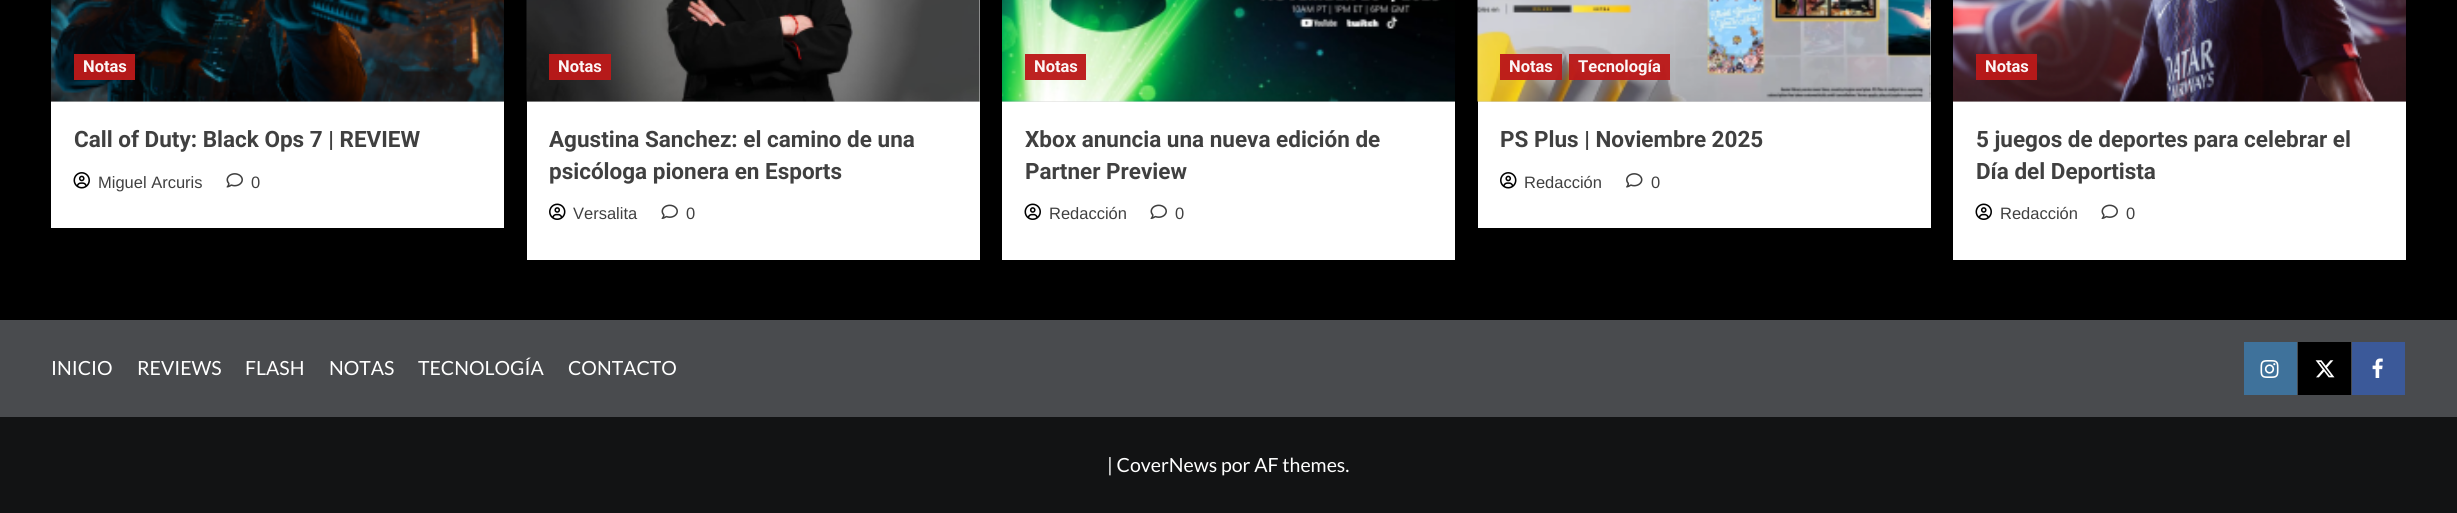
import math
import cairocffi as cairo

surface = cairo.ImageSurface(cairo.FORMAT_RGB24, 2457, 513)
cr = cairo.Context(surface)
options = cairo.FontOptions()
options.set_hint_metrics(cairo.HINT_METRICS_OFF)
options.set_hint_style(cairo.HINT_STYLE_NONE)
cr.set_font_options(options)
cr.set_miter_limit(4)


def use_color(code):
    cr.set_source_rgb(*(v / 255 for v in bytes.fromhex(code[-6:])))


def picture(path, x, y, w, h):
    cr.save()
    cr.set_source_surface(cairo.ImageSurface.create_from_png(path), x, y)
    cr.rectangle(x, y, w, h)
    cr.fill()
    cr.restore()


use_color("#000000")
cr.paint()
use_color("#ffffff")
cr.rectangle(51, 102, 453, 126)
cr.fill()
use_color("#d8d8d8")
cr.rectangle(51, 101, 453, 1)
cr.fill()
picture("img1.png", 51, 0, 453, 102)
cr.set_source_rgba(0.733, 0.098, 0.098, 0.96)
cr.rectangle(74, 54, 61, 26)
cr.fill()
cr.select_font_face("Roboto", cairo.FONT_SLANT_NORMAL, cairo.FONT_WEIGHT_BOLD)
cr.set_font_size(16.5)
use_color("#fcf6f6")
cr.move_to(83, 72)
cr.show_text("Notas")
cr.set_font_size(22.5)
use_color("#404040")
cr.move_to(74, 147)
cr.show_text("Call of Duty: Black Ops 7 | REVIEW")
picture("img2.png", 73, 172, 17, 17)
cr.select_font_face("Liberation Sans")
cr.set_font_size(16.5)
cr.move_to(98, 188)
cr.show_text("Miguel Arcuris")
picture("img3.png", 226, 173, 17, 15)
cr.move_to(251, 188)
cr.show_text("0")
use_color("#ffffff")
cr.rectangle(527, 102, 453, 158)
cr.fill()
use_color("#d8d8d8")
cr.rectangle(527, 0, 453, 102)
cr.fill()
picture("img4.png", 526, 0, 454, 102)
cr.set_source_rgba(0.733, 0.098, 0.098, 0.96)
cr.rectangle(549, 54, 62, 26)
cr.fill()
cr.select_font_face("Roboto", cairo.FONT_SLANT_NORMAL, cairo.FONT_WEIGHT_BOLD)
use_color("#fcf6f6")
cr.move_to(558, 72)
cr.show_text("Notas")
cr.set_font_size(22.5)
use_color("#404040")
cr.move_to(549, 147)
cr.show_text("Agustina Sanchez: el camino de una")
cr.move_to(549, 179)
cr.show_text("psicóloga pionera en Esports")
picture("img5.png", 549, 203, 17, 17)
cr.select_font_face("Liberation Sans")
cr.set_font_size(16.5)
cr.move_to(573, 219)
cr.show_text("Versalita")
picture("img6.png", 661, 204, 17, 15)
cr.move_to(686, 219)
cr.show_text("0")
use_color("#ffffff")
cr.rectangle(1002, 102, 453, 158)
cr.fill()
use_color("#d8d8d8")
cr.rectangle(1002, 101, 453, 1)
cr.fill()
picture("img7.png", 1002, 0, 453, 102)
cr.set_source_rgba(0.733, 0.098, 0.098, 0.96)
cr.rectangle(1025, 54, 61, 26)
cr.fill()
cr.select_font_face("Roboto", cairo.FONT_SLANT_NORMAL, cairo.FONT_WEIGHT_BOLD)
use_color("#fcf6f6")
cr.move_to(1034, 72)
cr.show_text("Notas")
cr.set_font_size(22.5)
use_color("#404040")
cr.move_to(1025, 147)
cr.show_text("Xbox anuncia una nueva edición de")
cr.move_to(1025, 179)
cr.show_text("Partner Preview")
picture("img8.png", 1024, 203, 17, 17)
cr.select_font_face("Liberation Sans")
cr.set_font_size(16.5)
cr.move_to(1049, 219)
cr.show_text("Redacción")
picture("img6.png", 1150, 204, 17, 15)
cr.move_to(1175, 219)
cr.show_text("0")
use_color("#ffffff")
cr.rectangle(1478, 102, 453, 126)
cr.fill()
use_color("#d8d8d8")
cr.rectangle(1478, 0, 453, 102)
cr.fill()
picture("img9.png", 1477, 0, 454, 102)
cr.set_source_rgba(0.733, 0.098, 0.098, 0.96)
cr.rectangle(1500, 54, 62, 26)
cr.fill()
cr.select_font_face("Roboto", cairo.FONT_SLANT_NORMAL, cairo.FONT_WEIGHT_BOLD)
use_color("#fcf6f6")
cr.move_to(1509, 72)
cr.show_text("Notas")
cr.set_source_rgba(0.733, 0.098, 0.098, 0.96)
cr.rectangle(1569, 54, 101, 26)
cr.fill()
use_color("#fcf6f6")
cr.move_to(1578, 72)
cr.show_text("Tecnología")
cr.set_font_size(22.5)
use_color("#404040")
cr.move_to(1500, 147)
cr.show_text("PS Plus | Noviembre 2025")
picture("img10.png", 1500, 172, 17, 17)
cr.select_font_face("Liberation Sans")
cr.set_font_size(16.5)
cr.move_to(1524, 188)
cr.show_text("Redacción")
picture("img11.png", 1626, 173, 17, 15)
cr.move_to(1651, 188)
cr.show_text("0")
use_color("#ffffff")
cr.rectangle(1953, 102, 453, 158)
cr.fill()
use_color("#d8d8d8")
cr.rectangle(1953, 101, 453, 1)
cr.fill()
picture("img12.png", 1953, 0, 453, 102)
cr.set_source_rgba(0.733, 0.098, 0.098, 0.96)
cr.rectangle(1976, 54, 61, 26)
cr.fill()
cr.select_font_face("Roboto", cairo.FONT_SLANT_NORMAL, cairo.FONT_WEIGHT_BOLD)
use_color("#fcf6f6")
cr.move_to(1985, 72)
cr.show_text("Notas")
cr.set_font_size(22.5)
use_color("#404040")
cr.move_to(1976, 147)
cr.show_text("5 juegos de deportes para celebrar el")
cr.move_to(1976, 179)
cr.show_text("Día del Deportista")
picture("img8.png", 1975, 203, 17, 17)
cr.select_font_face("Liberation Sans")
cr.set_font_size(16.5)
cr.move_to(2000, 219)
cr.show_text("Redacción")
picture("img6.png", 2101, 204, 17, 15)
cr.move_to(2126, 219)
cr.show_text("0")
use_color("#494b4e")
cr.rectangle(0, 320, 2457, 97)
cr.fill()
cr.select_font_face("Lato")
cr.set_font_size(19.5)
use_color("#ffffff")
cr.move_to(51, 375)
cr.show_text("INICIO")
cr.move_to(137, 375)
cr.show_text("REVIEWS")
cr.move_to(245, 375)
cr.show_text("FLASH")
cr.move_to(329, 375)
cr.show_text("NOTAS")
cr.move_to(418, 375)
cr.show_text("TECNOLOGÍA")
cr.move_to(568, 375)
cr.show_text("CONTACTO")
use_color("#3f729b")
cr.rectangle(2244, 342, 53, 53)
cr.fill()
picture("img13.png", 2260, 360, 19, 18)
use_color("#000000")
cr.rectangle(2298, 342, 53, 53)
cr.fill()
picture("img14.png", 2315, 360, 20, 18)
use_color("#3b5999")
cr.rectangle(2352, 342, 53, 53)
cr.fill()
picture("img15.png", 2372, 358, 11, 20)
use_color("#121314")
cr.rectangle(0, 417, 2457, 96)
cr.fill()
use_color("#ffffff")
cr.move_to(1107, 472)
cr.show_text("| CoverNews por AF themes.")
surface.write_to_png("result.png")
